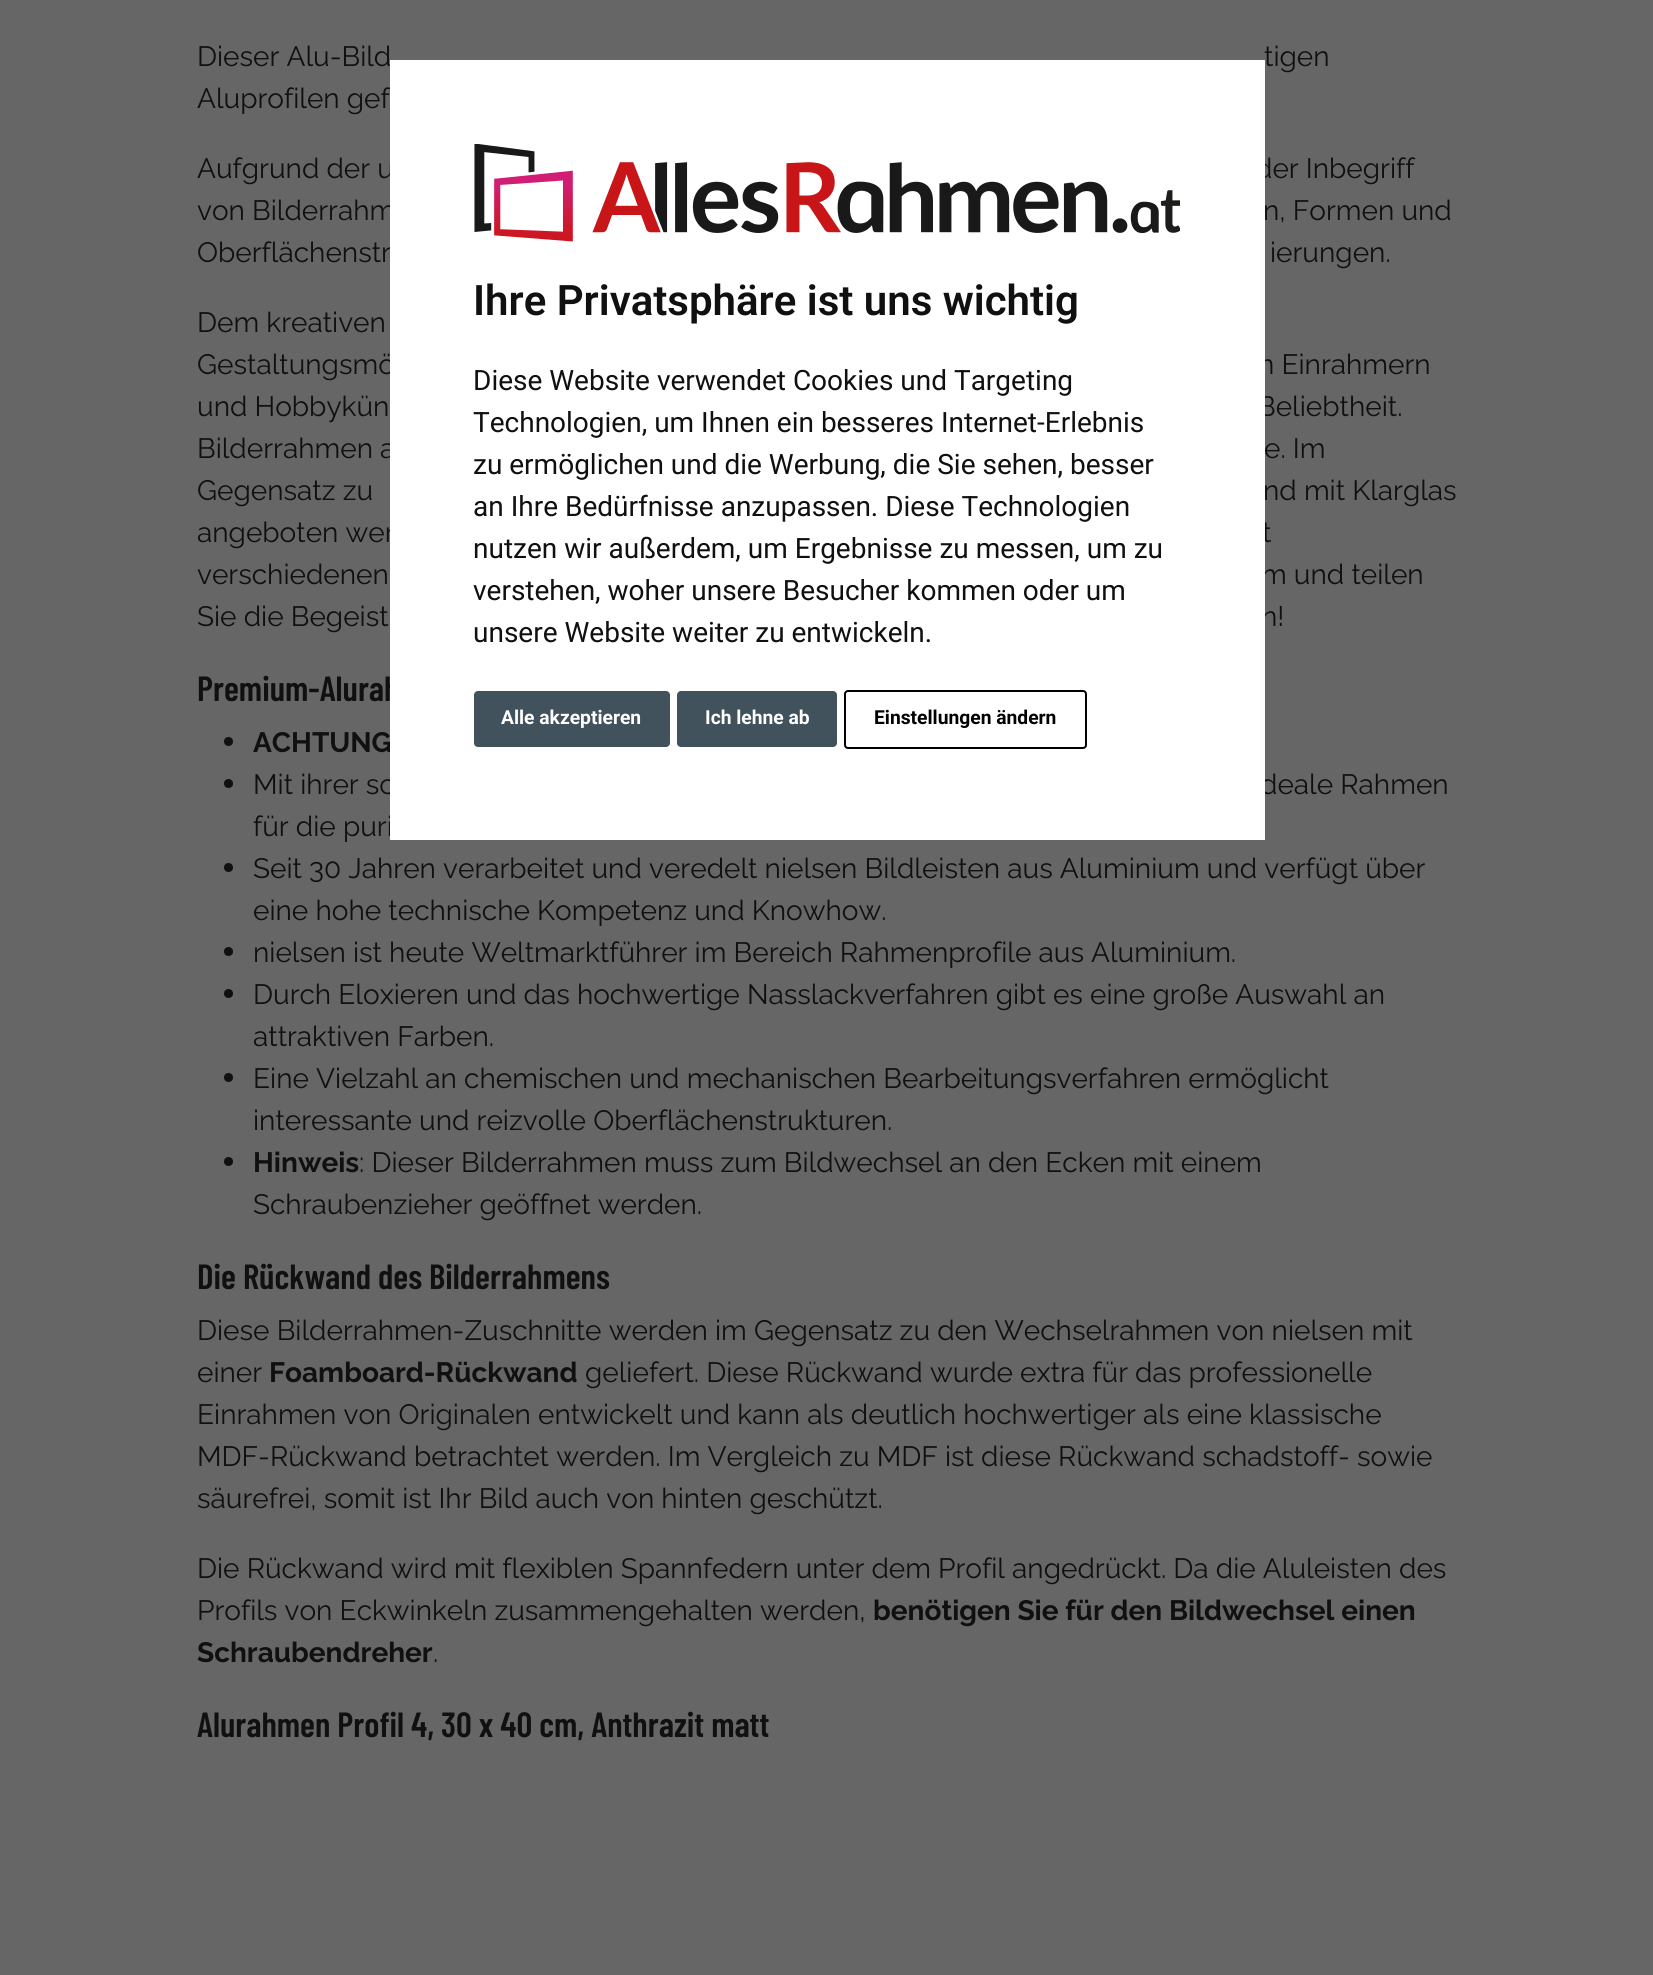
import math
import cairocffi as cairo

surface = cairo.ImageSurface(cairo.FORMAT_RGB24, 1653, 1975)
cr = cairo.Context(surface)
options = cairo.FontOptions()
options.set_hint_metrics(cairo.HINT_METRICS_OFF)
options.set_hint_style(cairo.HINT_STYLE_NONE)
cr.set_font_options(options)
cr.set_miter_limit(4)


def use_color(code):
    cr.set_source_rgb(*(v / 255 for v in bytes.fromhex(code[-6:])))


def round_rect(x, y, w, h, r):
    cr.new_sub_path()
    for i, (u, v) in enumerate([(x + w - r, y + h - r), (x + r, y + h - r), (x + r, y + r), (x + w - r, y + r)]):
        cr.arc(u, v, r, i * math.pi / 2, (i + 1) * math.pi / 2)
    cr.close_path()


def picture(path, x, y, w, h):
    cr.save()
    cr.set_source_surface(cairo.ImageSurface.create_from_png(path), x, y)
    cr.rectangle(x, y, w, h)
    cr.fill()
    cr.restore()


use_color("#666666")
cr.paint()
cr.select_font_face("Raleway")
cr.set_font_size(28)
use_color("#101010")
cr.move_to(197, 66)
cr.show_text("Dieser Alu-Bild")
cr.move_to(1264, 66)
cr.show_text("tigen")
cr.move_to(197, 108)
cr.show_text("Aluprofilen gef")
cr.move_to(197, 178)
cr.show_text("Aufgrund der u")
cr.move_to(1255, 178)
cr.show_text("der Inbegriff")
cr.move_to(197, 220)
cr.show_text("von Bilderrahm")
cr.move_to(1263, 220)
cr.show_text("n, Formen und")
cr.move_to(197, 262)
cr.show_text("Oberflächenstr")
cr.move_to(1270, 262)
cr.show_text("ierungen.")
cr.move_to(197, 332)
cr.show_text("Dem kreativen")
cr.move_to(197, 374)
cr.show_text("Gestaltungsmö")
cr.move_to(1258, 374)
cr.show_text("n Einrahmern")
cr.move_to(197, 416)
cr.show_text("und Hobbykün")
cr.move_to(1257, 416)
cr.show_text("Beliebtheit.")
cr.move_to(197, 458)
cr.show_text("Bilderrahmen a")
cr.move_to(1264, 458)
cr.show_text("e. Im")
cr.move_to(197, 500)
cr.show_text("Gegensatz zu")
cr.move_to(1263, 500)
cr.show_text("nd mit Klarglas")
cr.move_to(197, 542)
cr.show_text("angeboten wer")
cr.move_to(1262, 542)
cr.show_text("t")
cr.move_to(197, 584)
cr.show_text("verschiedenen")
cr.move_to(1261, 584)
cr.show_text("m und teilen")
cr.move_to(197, 626)
cr.show_text("Sie die Begeist")
cr.move_to(1261, 626)
cr.show_text("n!")
cr.select_font_face("Barlow Condensed SemiBold")
cr.set_font_size(35)
cr.move_to(197, 701)
cr.show_text("Premium-Alurah")
cr.new_path()
cr.arc(228.5, 741.5, 4.5, 0, 2 * math.pi)
cr.fill()
cr.select_font_face("Raleway", cairo.FONT_SLANT_NORMAL, cairo.FONT_WEIGHT_BOLD)
cr.set_font_size(28)
cr.move_to(253, 752)
cr.show_text("ACHTUNG")
cr.new_path()
cr.arc(228.5, 783.5, 4.5, 0, 2 * math.pi)
cr.fill()
cr.select_font_face("Raleway")
cr.move_to(253, 794)
cr.show_text("Mit ihrer sc")
cr.move_to(1260, 794)
cr.show_text("deale Rahmen")
cr.move_to(253, 836)
cr.show_text("für die puri")
cr.new_path()
cr.arc(228.5, 867.5, 4.5, 0, 2 * math.pi)
cr.fill()
cr.move_to(253, 878)
cr.show_text("Seit 30 Jahren verarbeitet und veredelt nielsen Bildleisten aus Aluminium und verfügt über")
cr.move_to(253, 920)
cr.show_text("eine hohe technische Kompetenz und Knowhow.")
cr.new_path()
cr.arc(228.5, 951.5, 4.5, 0, 2 * math.pi)
cr.fill()
cr.move_to(253, 962)
cr.show_text("nielsen ist heute Weltmarktführer im Bereich Rahmenprofile aus Aluminium.")
cr.new_path()
cr.arc(228.5, 993.5, 4.5, 0, 2 * math.pi)
cr.fill()
cr.move_to(253, 1004)
cr.show_text("Durch Eloxieren und das hochwertige Nasslackverfahren gibt es eine große Auswahl an")
cr.move_to(253, 1046)
cr.show_text("attraktiven Farben.")
cr.new_path()
cr.arc(228.5, 1077.5, 4.5, 0, 2 * math.pi)
cr.fill()
cr.move_to(253, 1088)
cr.show_text("Eine Vielzahl an chemischen und mechanischen Bearbeitungsverfahren ermöglicht")
cr.move_to(253, 1130)
cr.show_text("interessante und reizvolle Oberflächenstrukturen.")
cr.new_path()
cr.arc(228.5, 1161.5, 4.5, 0, 2 * math.pi)
cr.fill()
cr.select_font_face("Raleway", cairo.FONT_SLANT_NORMAL, cairo.FONT_WEIGHT_BOLD)
cr.move_to(253, 1172)
cr.show_text("Hinweis")
cr.select_font_face("Raleway")
cr.move_to(359, 1172)
cr.show_text(": Dieser Bilderrahmen muss zum Bildwechsel an den Ecken mit einem")
cr.move_to(253, 1214)
cr.show_text("Schraubenzieher geöffnet werden.")
cr.select_font_face("Barlow Condensed SemiBold")
cr.set_font_size(35)
cr.move_to(197, 1289)
cr.show_text("Die Rückwand des Bilderrahmens")
cr.select_font_face("Raleway")
cr.set_font_size(28)
cr.move_to(197, 1340)
cr.show_text("Diese Bilderrahmen-Zuschnitte werden im Gegensatz zu den Wechselrahmen von nielsen mit")
cr.move_to(197, 1382)
cr.show_text("einer")
cr.select_font_face("Raleway", cairo.FONT_SLANT_NORMAL, cairo.FONT_WEIGHT_BOLD)
cr.move_to(269, 1382)
cr.show_text("Foamboard-Rückwand")
cr.select_font_face("Raleway")
cr.move_to(585, 1382)
cr.show_text("geliefert. Diese Rückwand wurde extra für das professionelle")
cr.move_to(197, 1424)
cr.show_text("Einrahmen von Originalen entwickelt und kann als deutlich hochwertiger als eine klassische")
cr.move_to(197, 1466)
cr.show_text("MDF-Rückwand betrachtet werden. Im Vergleich zu MDF ist diese Rückwand schadstoff- sowie")
cr.move_to(197, 1508)
cr.show_text("säurefrei, somit ist Ihr Bild auch von hinten geschützt.")
cr.move_to(197, 1578)
cr.show_text("Die Rückwand wird mit flexiblen Spannfedern unter dem Profil angedrückt. Da die Aluleisten des")
cr.move_to(197, 1620)
cr.show_text("Profils von Eckwinkeln zusammengehalten werden,")
cr.select_font_face("Raleway", cairo.FONT_SLANT_NORMAL, cairo.FONT_WEIGHT_BOLD)
cr.move_to(873, 1620)
cr.show_text("benötigen Sie für den Bildwechsel einen")
cr.move_to(197, 1662)
cr.show_text("Schraubendreher")
cr.select_font_face("Raleway")
cr.move_to(433, 1662)
cr.show_text(".")
cr.select_font_face("Barlow Condensed SemiBold")
cr.set_font_size(35)
cr.move_to(197, 1737)
cr.show_text("Alurahmen Profil 4, 30 x 40 cm, Anthrazit matt")
use_color("#ffffff")
cr.rectangle(390, 60, 875, 780)
cr.fill()
picture("img1.png", 474, 144, 706, 98)
cr.select_font_face("Roboto SemiBold")
cr.set_font_size(42)
use_color("#101010")
cr.move_to(473, 315)
cr.show_text("Ihre Privatsphäre ist uns wichtig")
cr.select_font_face("Roboto")
cr.set_font_size(28)
cr.move_to(473, 390)
cr.show_text("Diese Website verwendet Cookies und Targeting")
cr.move_to(473, 432)
cr.show_text("Technologien, um Ihnen ein besseres Internet-Erlebnis")
cr.move_to(473, 474)
cr.show_text("zu ermöglichen und die Werbung, die Sie sehen, besser")
cr.move_to(473, 516)
cr.show_text("an Ihre Bedürfnisse anzupassen. Diese Technologien")
cr.move_to(473, 558)
cr.show_text("nutzen wir außerdem, um Ergebnisse zu messen, um zu")
cr.move_to(473, 600)
cr.show_text("verstehen, woher unsere Besucher kommen oder um")
cr.move_to(473, 642)
cr.show_text("unsere Website weiter zu entwickeln.")
use_color("#42525c")
round_rect(474, 691, 196, 56, 4)
cr.fill()
cr.select_font_face("Roboto", cairo.FONT_SLANT_NORMAL, cairo.FONT_WEIGHT_BOLD)
cr.set_font_size(19.25)
use_color("#ffffff")
cr.move_to(501, 724)
cr.show_text("Alle akzeptieren")
use_color("#42525c")
round_rect(677, 691, 160, 56, 4)
cr.fill()
use_color("#ffffff")
cr.move_to(705, 724)
cr.show_text("Ich lehne ab")
round_rect(845, 691, 241, 57, 3)
use_color("#000000")
cr.stroke()
cr.move_to(874, 724)
cr.show_text("Einstellungen ändern")
surface.write_to_png("result.png")
